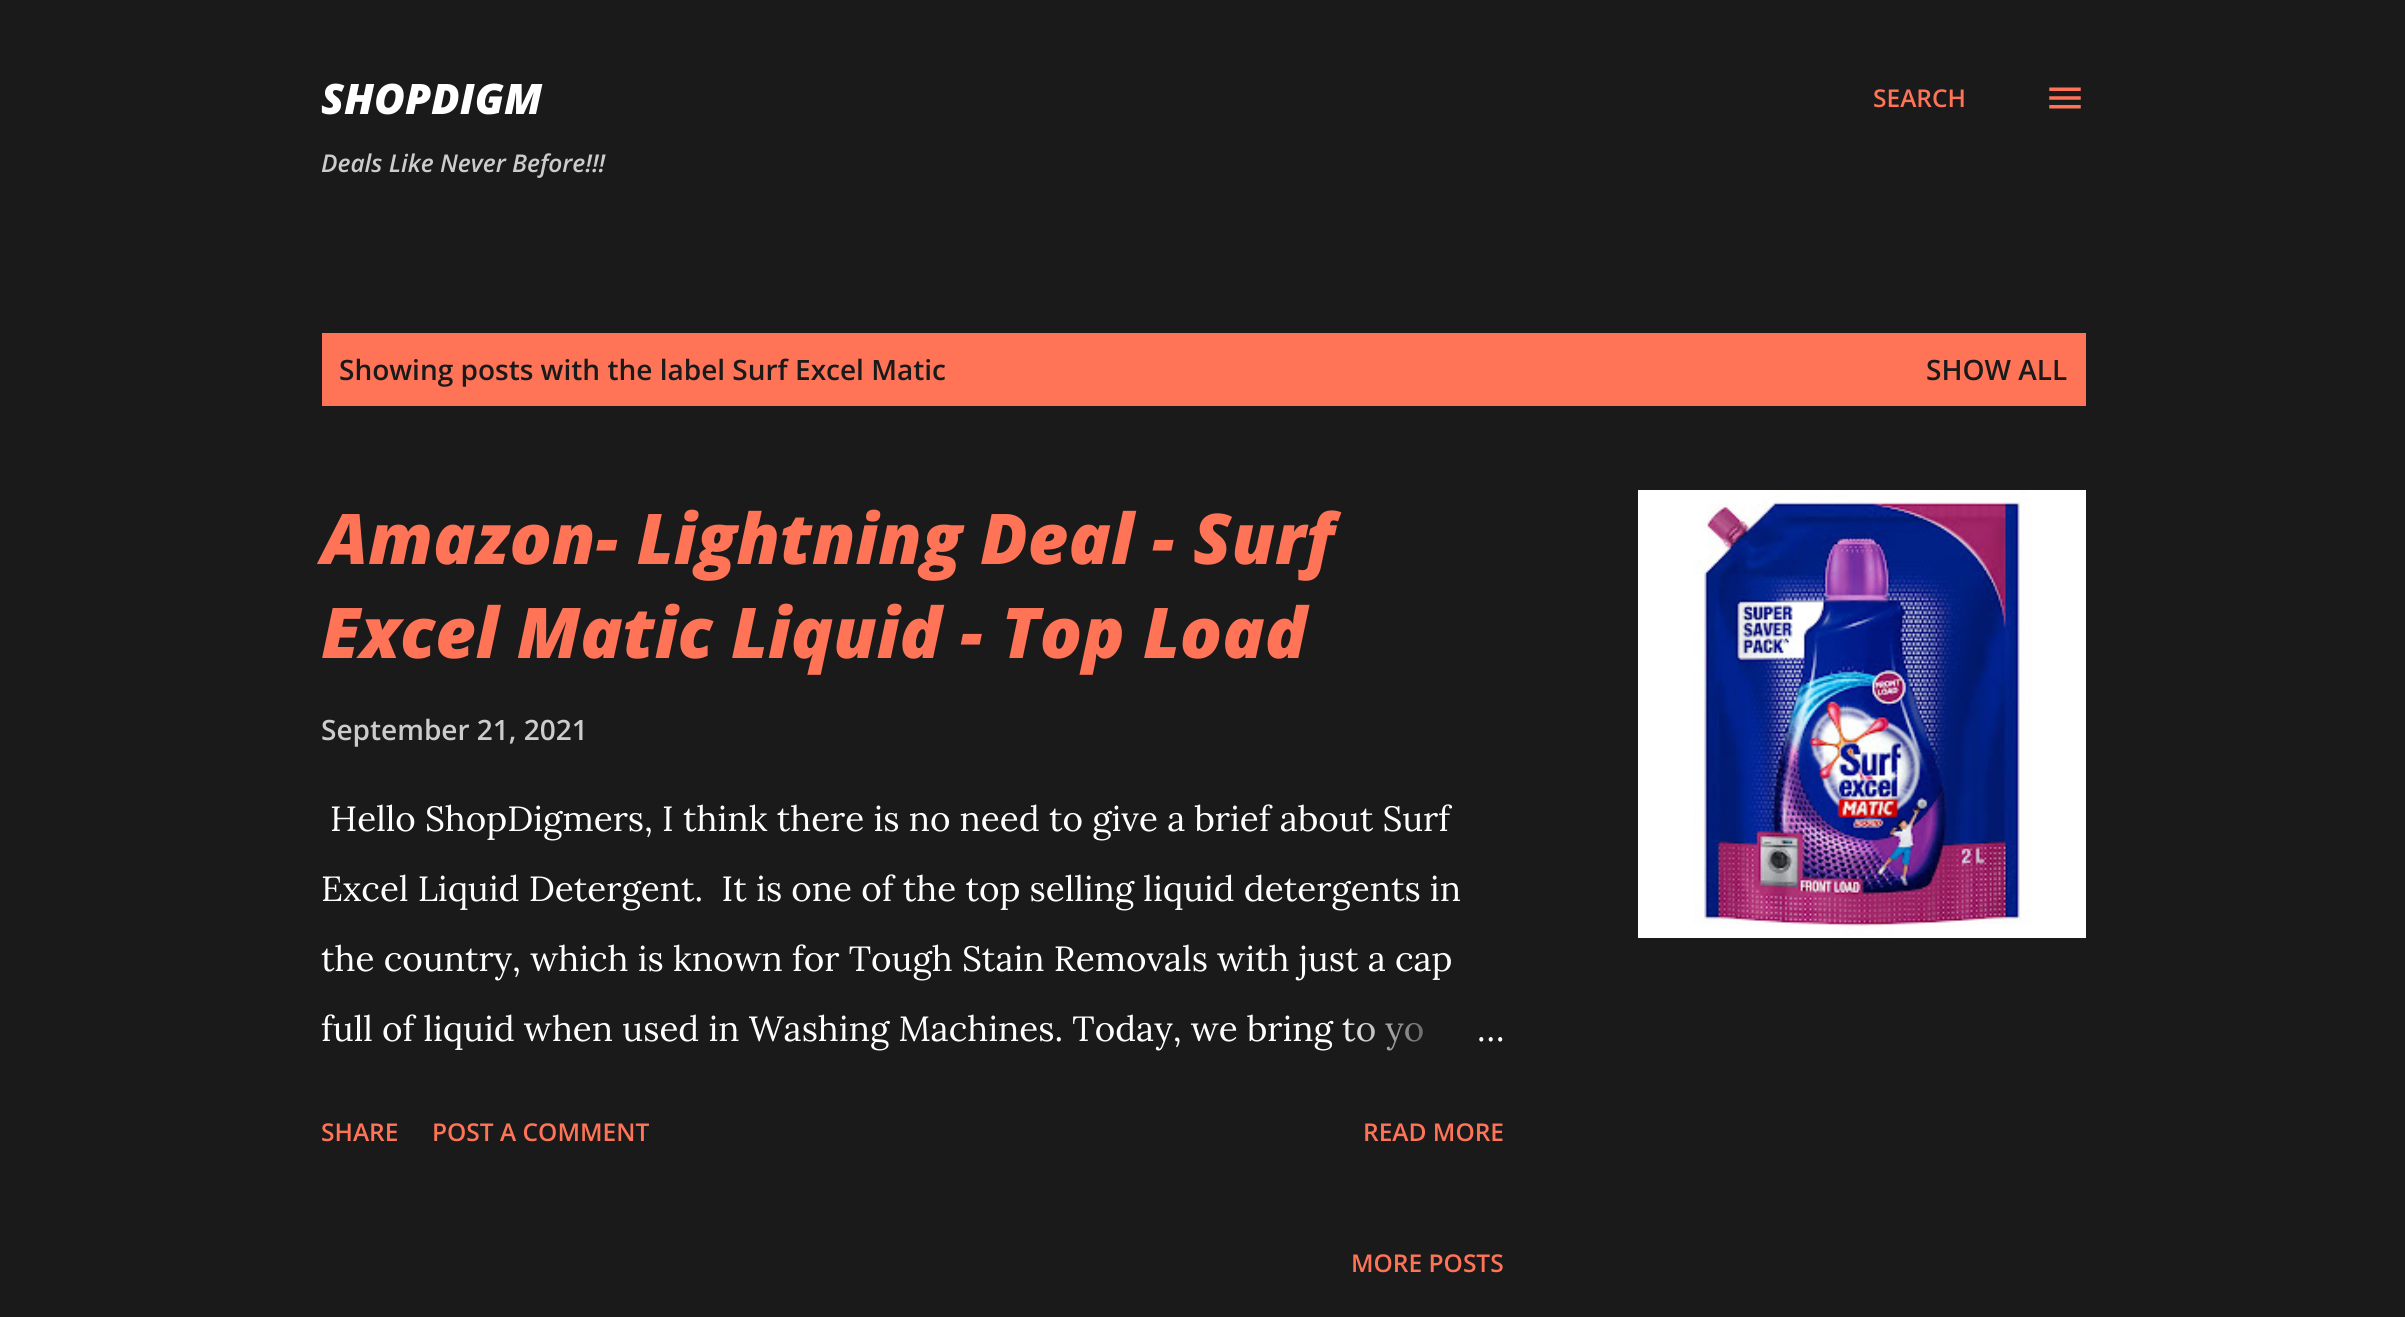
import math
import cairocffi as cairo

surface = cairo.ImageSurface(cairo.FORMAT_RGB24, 2405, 1317)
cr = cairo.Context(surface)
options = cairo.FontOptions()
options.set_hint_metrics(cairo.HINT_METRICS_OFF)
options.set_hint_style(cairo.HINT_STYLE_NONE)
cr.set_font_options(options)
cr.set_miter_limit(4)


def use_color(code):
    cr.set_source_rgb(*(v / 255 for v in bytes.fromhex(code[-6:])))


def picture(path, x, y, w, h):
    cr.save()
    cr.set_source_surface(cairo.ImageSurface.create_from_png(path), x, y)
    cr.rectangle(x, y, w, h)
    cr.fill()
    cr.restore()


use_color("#1a1a1a")
cr.paint()
cr.select_font_face("Open Sans ExtraBold", cairo.FONT_SLANT_ITALIC)
cr.set_font_size(42)
use_color("#ffffff")
cr.move_to(321, 114)
cr.show_text("SHOPDIGM")
cr.select_font_face("Open Sans SemiBold", cairo.FONT_SLANT_ITALIC)
cr.set_font_size(24.5)
use_color("#cccccc")
cr.move_to(321, 172)
cr.show_text("Deals Like Never Before!!!")
cr.select_font_face("Open Sans SemiBold")
use_color("#ff7357")
cr.move_to(1873, 107)
cr.show_text("SEARCH")
picture("img1.png", 2049, 87, 32, 22)
cr.rectangle(322, 333, 1764, 73)
cr.fill()
cr.set_font_size(28)
use_color("#1a1a1a")
cr.move_to(339, 380)
cr.show_text("Showing posts with the label Surf Excel Matic")
cr.move_to(1926, 380)
cr.show_text("SHOW ALL")
cr.select_font_face("Open Sans ExtraBold", cairo.FONT_SLANT_ITALIC)
cr.set_font_size(70)
use_color("#ff7357")
cr.move_to(321, 564)
cr.show_text("Amazon- Lightning Deal - Surf")
cr.move_to(321, 658)
cr.show_text("Excel Matic Liquid - Top Load")
cr.select_font_face("Open Sans SemiBold")
cr.set_font_size(28)
use_color("#cccccc")
cr.move_to(321, 740)
cr.show_text("September 21, 2021")
cr.select_font_face("Lora")
cr.set_font_size(35)
use_color("#ffffff")
cr.move_to(330, 831)
cr.show_text("Hello ShopDigmers, I think there is no need to give a brief about Surf")
cr.move_to(321, 901)
cr.show_text("Excel Liquid Detergent.  It is one of the top selling liquid detergents in")
cr.move_to(321, 971)
cr.show_text("the country, which is known for Tough Stain Removals with just a cap")
cr.move_to(321, 1041)
cr.show_text("full of liquid when used in Washing Machines. Today, we bring to yo")
gradient = cairo.LinearGradient(1505, 1029, 1337, 1029)
gradient.add_color_stop_rgba(0, 0.102, 0.102, 0.102, 1)
gradient.add_color_stop_rgba(0.2, 0.102, 0.102, 0.102, 1)
gradient.add_color_stop_rgba(1, 0.102, 0.102, 0.102, 0)
cr.set_source(gradient)
cr.rectangle(1343, 1018, 80, 33)
cr.fill()
use_color("#ffffff")
cr.move_to(1477, 1041)
cr.show_text("…")
cr.select_font_face("Open Sans SemiBold")
cr.set_font_size(24.5)
use_color("#ff7357")
cr.move_to(321, 1141)
cr.show_text("SHARE")
cr.move_to(432, 1141)
cr.show_text("POST A COMMENT")
cr.move_to(1363, 1141)
cr.show_text("READ MORE")
picture("img2.png", 1638, 490, 448, 448)
cr.move_to(1351, 1272)
cr.show_text("MORE POSTS")
surface.write_to_png("result.png")
